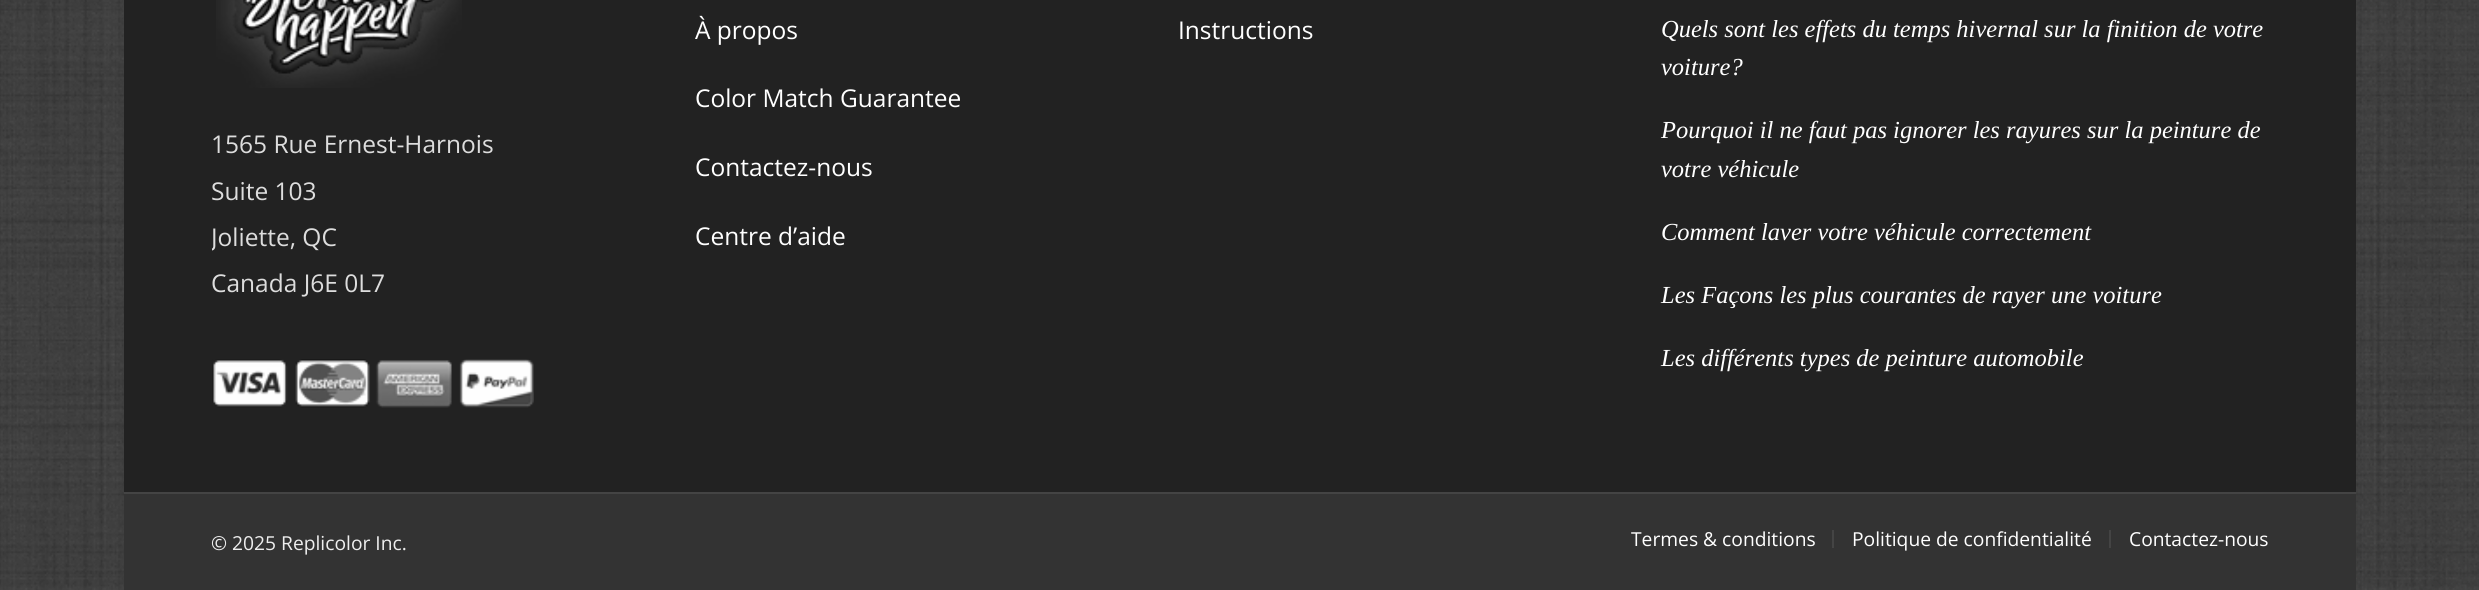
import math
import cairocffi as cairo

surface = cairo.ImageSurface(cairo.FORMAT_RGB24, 2479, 590)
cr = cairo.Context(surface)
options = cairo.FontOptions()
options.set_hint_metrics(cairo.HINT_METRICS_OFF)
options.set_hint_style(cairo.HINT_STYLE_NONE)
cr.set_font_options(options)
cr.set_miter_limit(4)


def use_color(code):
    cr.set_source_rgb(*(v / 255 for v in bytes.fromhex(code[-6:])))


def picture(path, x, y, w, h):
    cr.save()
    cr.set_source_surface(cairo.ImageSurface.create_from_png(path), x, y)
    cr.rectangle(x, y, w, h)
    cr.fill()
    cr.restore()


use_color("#333333")
cr.paint()
picture("img1.png", 0, 0, 2479, 590)
use_color("#222222")
cr.rectangle(124, 0, 2232, 492)
cr.fill()
cr.select_font_face("Open Sans")
cr.set_font_size(24.5)
use_color("#ffffff")
cr.move_to(695, 39)
cr.show_text("À propos")
cr.move_to(695, 107)
cr.show_text("Color Match Guarantee")
cr.move_to(695, 176)
cr.show_text("Contactez-nous")
cr.move_to(695, 245)
cr.show_text("Centre d’aide")
cr.move_to(1178, 39)
cr.show_text("Instructions")
cr.select_font_face("Liberation Serif", cairo.FONT_SLANT_ITALIC)
cr.move_to(1661, 37)
cr.show_text("Quels sont les effets du temps hivernal sur la finition de votre")
cr.move_to(1661, 75)
cr.show_text("voiture?")
cr.move_to(1661, 138)
cr.show_text("Pourquoi il ne faut pas ignorer les rayures sur la peinture de")
cr.move_to(1661, 177)
cr.show_text("votre véhicule")
cr.move_to(1661, 240)
cr.show_text("Comment laver votre véhicule correctement")
cr.move_to(1661, 303)
cr.show_text("Les Façons les plus courantes de rayer une voiture")
cr.move_to(1661, 366)
cr.show_text("Les différents types de peinture automobile")
picture("img2.png", 216, 0, 246, 88)
cr.select_font_face("Open Sans")
use_color("#dddddd")
cr.move_to(211, 153)
cr.show_text("1565 Rue Ernest-Harnois")
cr.move_to(211, 200)
cr.show_text("Suite 103")
cr.save()
cr.rectangle(212, 123, 422, 183)
cr.clip()
cr.move_to(211, 246)
cr.show_text("Joliette, QC")
cr.restore()
cr.move_to(211, 292)
cr.show_text("Canada J6E 0L7")
picture("img3.png", 212, 359, 322, 49)
use_color("#333333")
cr.rectangle(124, 494, 2232, 96)
cr.fill()
use_color("#444444")
cr.rectangle(124, 492, 2232, 2)
cr.fill()
cr.set_font_size(19.25)
use_color("#eeeeee")
cr.move_to(211, 550)
cr.show_text("© 2025 Replicolor Inc.")
use_color("#ffffff")
cr.move_to(1631, 546)
cr.show_text("Termes & conditions")
use_color("#444444")
cr.rectangle(1832, 530, 2, 18)
cr.fill()
use_color("#ffffff")
cr.move_to(1852, 546)
cr.show_text("Politique de confidentialité")
use_color("#444444")
cr.rectangle(2109, 530, 2, 18)
cr.fill()
use_color("#ffffff")
cr.move_to(2129, 546)
cr.show_text("Contactez-nous")
surface.write_to_png("result.png")
